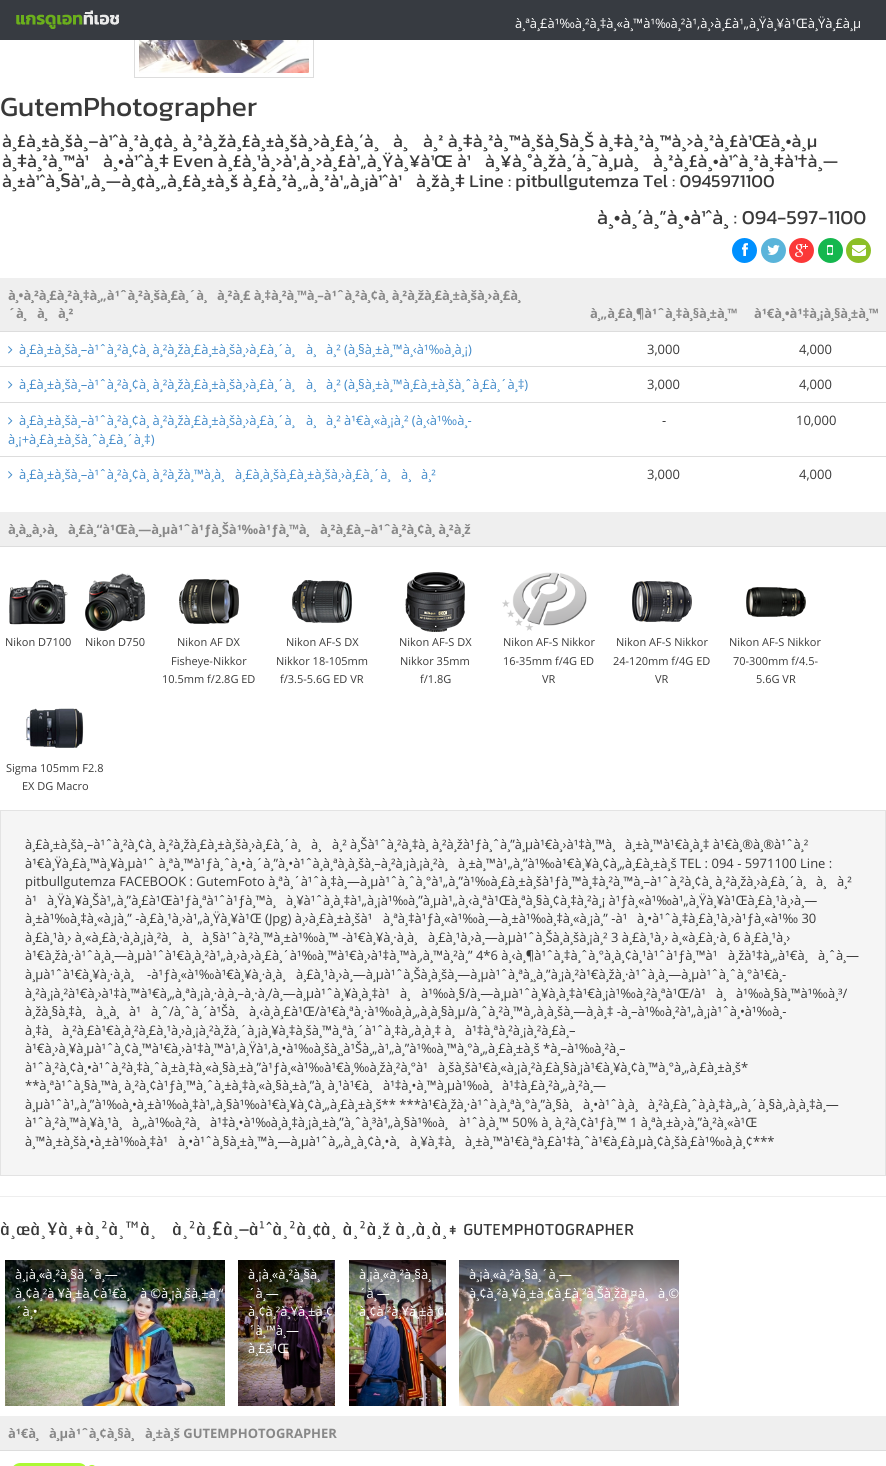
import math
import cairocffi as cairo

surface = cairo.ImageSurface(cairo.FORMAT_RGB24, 886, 1466)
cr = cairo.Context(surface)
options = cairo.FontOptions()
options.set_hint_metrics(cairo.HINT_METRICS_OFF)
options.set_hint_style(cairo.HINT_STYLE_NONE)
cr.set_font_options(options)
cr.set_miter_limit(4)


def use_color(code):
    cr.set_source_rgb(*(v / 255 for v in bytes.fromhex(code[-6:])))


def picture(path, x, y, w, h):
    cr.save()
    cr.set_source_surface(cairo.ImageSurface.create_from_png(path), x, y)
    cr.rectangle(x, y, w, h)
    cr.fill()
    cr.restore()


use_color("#ffffff")
cr.paint()
cr.rectangle(134.5, -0.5, 179, 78)
use_color("#dddddd")
cr.set_line_width(1)
cr.stroke()
use_color("#373b41")
cr.rectangle(0, 0, 886, 40)
cr.fill()
picture("img1.png", 16, 10, 103, 19)
cr.select_font_face("Open Sans")
cr.set_font_size(13)
use_color("#ffffff")
cr.move_to(515, 28)
cr.show_text("à¸ªà¸£à¹‰à¸²à¸‡à¸«à¸™à¹‰à¸²à¹‚à¸›à¸£à¹„à¸Ÿà¸¥à¹Œà¸Ÿà¸£à¸µ")
picture("img2.png", 139, 40, 170, 33)
cr.select_font_face("Kanit")
cr.set_font_size(28)
use_color("#393939")
cr.move_to(0, 116)
cr.show_text("GutemPhotographer")
cr.set_font_size(18)
cr.move_to(2, 147)
cr.show_text("à¸£à¸±à¸šà¸–à¹ˆà¸²à¸¢à¸ à¸²à¸žà¸£à¸±à¸šà¸›à¸£à¸´à¸")
cr.move_to(393, 147)
cr.show_text("à¸")
cr.move_to(423, 147)
cr.show_text("à¸² à¸‡à¸²à¸™à¸šà¸§à¸Š à¸‡à¸²à¸™à¸›à¸²à¸£à¹Œà¸•à¸µ")
cr.move_to(2, 167)
cr.show_text("à¸‡à¸²à¸™à¹")
cr.move_to(103, 167)
cr.show_text("à¸•à¹ˆà¸‡ Even à¸£à¸¹à¸›à¹‚à¸›à¸£à¹„à¸Ÿà¸¥à¹Œ à¹")
cr.move_to(485, 167)
cr.show_text("à¸¥à¸°à¸žà¸´à¸˜à¸µà¸")
cr.move_to(653, 167)
cr.show_text("à¸²à¸£à¸•à¹ˆà¸²à¸‡à¹†à¸—")
cr.move_to(2, 187)
cr.show_text("à¸±à¹ˆà¸§à¹„à¸—à¸¢à¸„à¸£à¸±à¸š à¸£à¸²à¸„à¸²à¹„à¸¡à¹ˆà¹")
cr.move_to(416, 187)
cr.show_text("à¸žà¸‡ Line : pitbullgutemza Tel : 0945971100")
cr.set_font_size(20)
cr.move_to(597, 224)
cr.show_text("à¸•à¸´à¸”à¸•à¹ˆà¸ : 094-597-1100")
use_color("#0090ff")
cr.new_path()
cr.arc(744.5, 250.5, 12.5, 0, 2 * math.pi)
cr.fill()
picture("img3.png", 742, 243, 6, 13)
use_color("#5ab4da")
cr.arc(773.5, 250.5, 12.5, 0, 2 * math.pi)
cr.fill()
picture("img4.png", 767, 245, 13, 10)
use_color("#fb3838")
cr.arc(801.5, 250.5, 12.5, 0, 2 * math.pi)
cr.fill()
picture("img5.png", 795, 244, 13, 13)
use_color("#15b74e")
cr.arc(830.5, 250.5, 12.5, 0, 2 * math.pi)
cr.fill()
picture("img6.png", 827, 245, 6, 10)
use_color("#8cbf26")
cr.arc(858.5, 250.5, 12.5, 0, 2 * math.pi)
cr.fill()
picture("img7.png", 852, 245, 14, 11)
use_color("#efefef")
cr.rectangle(0, 278, 886, 53)
cr.fill()
cr.select_font_face("Open Sans", cairo.FONT_SLANT_NORMAL, cairo.FONT_WEIGHT_BOLD)
cr.set_font_size(13)
use_color("#888888")
cr.move_to(8, 300)
cr.show_text("à¸•à¸²à¸£à¸²à¸‡à¸„à¹ˆà¸²à¸šà¸£à¸´à¸")
cr.move_to(217, 300)
cr.show_text("à¸²à¸£ à¸‡à¸²à¸™à¸–à¹ˆà¸²à¸¢à¸ à¸²à¸žà¸£à¸±à¸šà¸›à¸£à¸")
cr.move_to(8, 318)
cr.show_text("´à¸")
cr.move_to(37, 318)
cr.show_text("à¸")
cr.move_to(58, 318)
cr.show_text("à¸²")
cr.move_to(590, 318)
cr.show_text("à¸„à¸£à¸¶à¹ˆà¸‡à¸§à¸±à¸™")
cr.move_to(754, 318)
cr.show_text("à¹€à¸•à¹‡à¸¡à¸§à¸±à¸™")
picture("img8.png", 8, 346, 5, 8)
cr.select_font_face("Open Sans")
use_color("#428bca")
cr.move_to(19, 354)
cr.show_text("à¸£à¸±à¸šà¸–à¹ˆà¸²à¸¢à¸ à¸²à¸žà¸£à¸±à¸šà¸›à¸£à¸´à¸")
cr.move_to(306, 354)
cr.show_text("à¸")
cr.move_to(326, 354)
cr.show_text("à¸² (à¸§à¸±à¸™à¸‹à¹‰à¸à¸¡)")
use_color("#393939")
cr.move_to(647, 354)
cr.show_text("3,000")
use_color("#dddddd")
cr.rectangle(0, 331, 886, 1)
cr.fill()
use_color("#393939")
cr.move_to(799, 354)
cr.show_text("4,000")
picture("img8.png", 8, 381, 5, 8)
use_color("#428bca")
cr.move_to(19, 389)
cr.show_text("à¸£à¸±à¸šà¸–à¹ˆà¸²à¸¢à¸ à¸²à¸žà¸£à¸±à¸šà¸›à¸£à¸´à¸")
cr.move_to(306, 389)
cr.show_text("à¸")
cr.move_to(326, 389)
cr.show_text("à¸² (à¸§à¸±à¸™à¸£à¸±à¸šà¸ˆà¸£à¸´à¸‡)")
use_color("#393939")
cr.move_to(647, 389)
cr.show_text("3,000")
use_color("#dddddd")
cr.rectangle(0, 366, 886, 1)
cr.fill()
use_color("#393939")
cr.move_to(799, 389)
cr.show_text("4,000")
picture("img8.png", 8, 417, 5, 8)
use_color("#428bca")
cr.move_to(19, 425)
cr.show_text("à¸£à¸±à¸šà¸–à¹ˆà¸²à¸¢à¸ à¸²à¸žà¸£à¸±à¸šà¸›à¸£à¸´à¸")
cr.move_to(306, 425)
cr.show_text("à¸")
cr.move_to(326, 425)
cr.show_text("à¸² à¹€à¸«à¸¡à¸² (à¸‹à¹‰à¸-")
cr.move_to(8, 444)
cr.show_text("à¸¡+à¸£à¸±à¸šà¸ˆà¸£à¸´à¸‡)")
use_color("#393939")
cr.move_to(662, 425)
cr.show_text("-")
use_color("#dddddd")
cr.rectangle(0, 402, 886, 1)
cr.fill()
use_color("#393939")
cr.move_to(796, 425)
cr.show_text("10,000")
picture("img8.png", 8, 471, 5, 8)
use_color("#428bca")
cr.move_to(19, 479)
cr.show_text("à¸£à¸±à¸šà¸–à¹ˆà¸²à¸¢à¸ à¸²à¸žà¸™à¸à¸")
cr.move_to(235, 479)
cr.show_text("à¸£à¸à¸šà¸£à¸±à¸šà¸›à¸£à¸´à¸")
cr.move_to(401, 479)
cr.show_text("à¸")
cr.move_to(421, 479)
cr.show_text("à¸²")
use_color("#393939")
cr.move_to(647, 479)
cr.show_text("3,000")
use_color("#dddddd")
cr.rectangle(0, 456, 886, 1)
cr.fill()
use_color("#393939")
cr.move_to(799, 479)
cr.show_text("4,000")
use_color("#efefef")
cr.rectangle(0, 512, 886, 34)
cr.fill()
use_color("#dddddd")
cr.rectangle(0, 546, 886, 1)
cr.fill()
cr.select_font_face("Open Sans", cairo.FONT_SLANT_NORMAL, cairo.FONT_WEIGHT_BOLD)
use_color("#888888")
cr.move_to(8, 534)
cr.show_text("à¸à¸¸à¸›à¸")
cr.move_to(68, 534)
cr.show_text("à¸£à¸“à¹Œà¸—à¸µà¹ˆà¹ƒà¸Šà¹‰à¹ƒà¸™à¸")
cr.move_to(320, 534)
cr.show_text("à¸²à¸£à¸–à¹ˆà¸²à¸¢à¸ à¸²à¸ž")
picture("img9.png", 9, 579, 59, 46)
cr.select_font_face("Open Sans")
cr.set_font_size(11)
use_color("#393939")
cr.move_to(5, 646)
cr.show_text("Nikon D7100")
picture("img10.png", 85, 573, 60, 58)
cr.move_to(85, 646)
cr.show_text("Nikon D750")
picture("img11.png", 179, 579, 60, 45)
cr.move_to(177, 646)
cr.show_text("Nikon AF DX")
cr.move_to(171, 665)
cr.show_text("Fisheye-Nikkor")
cr.move_to(162, 683)
cr.show_text("10.5mm f/2.8G ED")
picture("img12.png", 292, 580, 60, 43)
cr.move_to(286, 646)
cr.show_text("Nikon AF-S DX")
cr.move_to(276, 665)
cr.show_text("Nikkor 18-105mm")
cr.move_to(280, 683)
cr.show_text("f/3.5-5.6G ED VR")
picture("img13.png", 405, 572, 60, 60)
cr.move_to(399, 646)
cr.show_text("Nikon AF-S DX")
cr.move_to(400, 665)
cr.show_text("Nikkor 35mm")
cr.move_to(420, 683)
cr.show_text("f/1.8G")
picture("img14.png", 502, 572, 85, 59)
cr.move_to(503, 646)
cr.show_text("Nikon AF-S Nikkor")
cr.move_to(503, 665)
cr.show_text("16-35mm f/4G ED")
cr.move_to(542, 683)
cr.show_text("VR")
picture("img15.png", 632, 581, 60, 41)
cr.move_to(616, 646)
cr.show_text("Nikon AF-S Nikkor")
cr.move_to(613, 665)
cr.show_text("24-120mm f/4G ED")
cr.move_to(655, 683)
cr.show_text("VR")
picture("img16.png", 746, 587, 60, 30)
cr.move_to(729, 646)
cr.show_text("Nikon AF-S Nikkor")
cr.move_to(733, 665)
cr.show_text("70-300mm f/4.5-")
cr.move_to(756, 683)
cr.show_text("5.6G VR")
picture("img17.png", 26, 708, 58, 40)
cr.move_to(6, 772)
cr.show_text("Sigma 105mm F2.8")
cr.move_to(22, 790)
cr.show_text("EX DG Macro")
use_color("#f5f5f5")
cr.rectangle(0.5, 810.5, 885, 365)
cr.fill_preserve()
use_color("#e3e3e3")
cr.stroke()
cr.set_font_size(13)
use_color("#393939")
cr.move_to(25, 849)
cr.show_text("à¸£à¸±à¸šà¸–à¹ˆà¸²à¸¢à¸ à¸²à¸žà¸£à¸±à¸šà¸›à¸£à¸´à¸")
cr.move_to(311, 849)
cr.show_text("à¸")
cr.move_to(332, 849)
cr.show_text("à¸² à¸Šà¹ˆà¸²à¸‡à¸ à¸²à¸žà¹ƒà¸ˆà¸”à¸µà¹€à¸›à¹‡à¸™à¸")
cr.move_to(625, 849)
cr.show_text("à¸±à¸™à¹€à¸à¸‡ à¹€à¸®à¸®à¹ˆà¸²")
cr.move_to(25, 868)
cr.show_text("à¹€à¸Ÿà¸£à¸™à¸¥à¸µà¹ˆ à¸ªà¸™à¹ƒà¸ˆà¸•à¸´à¸”à¸•à¹ˆà¸à¸ªà¸à¸šà¸–à¸²à¸¡à¸¡à¸²à¸")
cr.move_to(458, 868)
cr.show_text("à¸±à¸™à¹„à¸”à¹‰à¹€à¸¥à¸¢à¸„à¸£à¸±à¸š TEL : 094 - 5971100 Line :")
cr.move_to(25, 886)
cr.show_text("pitbullgutemza FACEBOOK : GutemFoto à¸ªà¸´à¹ˆà¸‡à¸—à¸µà¹ˆà¸ˆà¸°à¹„à¸”à¹‰à¸£à¸±à¸šà¹ƒà¸™à¸‡à¸²à¸™à¸–à¹ˆà¸²à¸¢à¸ à¸²à¸žà¸›à¸£à¸´à¸")
cr.move_to(816, 886)
cr.show_text("à¸")
cr.move_to(837, 886)
cr.show_text("à¸²")
cr.move_to(25, 905)
cr.show_text("à¹")
cr.move_to(47, 905)
cr.show_text("à¸Ÿà¸¥à¸Šà¹„à¸”à¸£à¹Œà¹ƒà¸ªà¹ˆà¹ƒà¸™à¸")
cr.move_to(286, 905)
cr.show_text("à¸¥à¹ˆà¸à¸‡à¹„à¸¡à¹‰à¸”à¸µà¹„à¸‹à¸ªà¹Œà¸ªà¸§à¸¢à¸‡à¸²à¸¡ à¹ƒà¸«à¹‰à¹„à¸Ÿà¸¥à¹Œà¸£à¸¹à¸›à¸—")
cr.move_to(25, 923)
cr.show_text("à¸±à¹‰à¸‡à¸«à¸¡à¸” -à¸£à¸¹à¸›à¹„à¸Ÿà¸¥à¹Œ (Jpg) à¸›à¸£à¸±à¸šà¹")
cr.move_to(383, 923)
cr.show_text("à¸ªà¸‡à¹ƒà¸«à¹‰à¸—à¸±à¹‰à¸‡à¸«à¸¡à¸” -à¹")
cr.move_to(637, 923)
cr.show_text("à¸•à¹ˆà¸‡à¸£à¸¹à¸›à¹ƒà¸«à¹‰ 30")
cr.move_to(25, 942)
cr.show_text("à¸£à¸¹à¸› à¸«à¸£à¸·à¸à¸¡à¸²à¸")
cr.move_to(182, 942)
cr.show_text("à¸")
cr.move_to(202, 942)
cr.show_text("à¸§à¹ˆà¸²à¸™à¸±à¹‰à¸™ -à¹€à¸¥à¸·à¸à¸")
cr.move_to(428, 942)
cr.show_text("à¸£à¸¹à¸›à¸—à¸µà¹ˆà¸Šà¸à¸šà¸¡à¸² 3 à¸£à¸¹à¸› à¸«à¸£à¸·à¸ 6 à¸£à¸¹à¸›")
cr.move_to(25, 960)
cr.show_text("à¹€à¸žà¸·à¹ˆà¸à¸—à¸µà¹ˆà¹€à¸à¸²à¹„à¸›à¸›à¸£à¸´à¹‰à¸™à¹€à¸›à¹‡à¸™à¸‚à¸™à¸²à¸” 4*6 à¸‹à¸¶à¹ˆà¸‡à¸ˆà¸°à¸à¸¢à¸¹à¹ˆà¹ƒà¸™à¹")
cr.move_to(728, 960)
cr.show_text("à¸žà¹‡à¸„à¹€à¸")
cr.move_to(818, 960)
cr.show_text("à¸ˆà¸—")
cr.move_to(25, 979)
cr.show_text("à¸µà¹ˆà¹€à¸¥à¸·à¸à¸")
cr.move_to(147, 979)
cr.show_text("-à¹ƒà¸«à¹‰à¹€à¸¥à¸·à¸à¸")
cr.move_to(296, 979)
cr.show_text("à¸£à¸¹à¸›à¸—à¸µà¹ˆà¸Šà¸à¸šà¸—à¸µà¹ˆà¸ªà¸¸à¸”à¸¡à¸²à¹€à¸žà¸·à¹ˆà¸à¸—à¸µà¹ˆà¸ˆà¸°à¹€à¸-")
cr.move_to(25, 998)
cr.show_text("à¸²à¸¡à¸²à¹€à¸›à¹‡à¸™à¹€à¸„à¸ªà¸¡à¸·à¸à¸–à¸·à¸/à¸—à¸µà¹ˆà¸¥à¸à¸‡à¹")
cr.move_to(400, 998)
cr.show_text("à¸")
cr.move_to(421, 998)
cr.show_text("à¹‰à¸§/à¸—à¸µà¹ˆà¸¥à¸à¸‡à¹€à¸¡à¹‰à¸²à¸ªà¹Œ/à¹")
cr.move_to(716, 998)
cr.show_text("à¸")
cr.move_to(736, 998)
cr.show_text("à¹‰à¸§à¸™à¹‰à¸³/")
cr.move_to(25, 1016)
cr.show_text("à¸žà¸§à¸‡à¸")
cr.move_to(96, 1016)
cr.show_text("à¸¸à¸")
cr.move_to(129, 1016)
cr.show_text("à¹")
cr.move_to(151, 1016)
cr.show_text("à¸ˆ/à¸ˆà¸´à¹Šà¸")
cr.move_to(249, 1016)
cr.show_text("à¸‹à¸à¸£à¹Œ/à¹€à¸ªà¸·à¹‰à¸à¸„à¸à¸§à¸µ/à¸ˆà¸²à¸™à¸‚à¸à¸šà¸—à¸à¸‡ -à¸–à¹‰à¸²à¹„à¸¡à¹ˆà¸•à¹‰à¸-")
cr.move_to(25, 1035)
cr.show_text("à¸‡à¸")
cr.move_to(62, 1035)
cr.show_text("à¸²à¸£à¹€à¸à¸²à¸£à¸¹à¸›à¸¡à¸²à¸žà¸´à¸¡à¸¥à¸‡à¸šà¸™à¸ªà¸´à¹ˆà¸‡à¸‚à¸à¸‡ à¸")
cr.move_to(465, 1035)
cr.show_text("à¹‡à¸ªà¸²à¸¡à¸²à¸£à¸–")
cr.move_to(25, 1053)
cr.show_text("à¹€à¸›à¸¥à¸µà¹ˆà¸¢à¸™à¹€à¸›à¹‡à¸™à¹‚à¸Ÿà¹‚à¸•à¹‰à¸šà¸¸à¹Šà¸„à¹„à¸”à¹‰à¸™à¸°à¸„à¸£à¸±à¸š *à¸–à¹‰à¸²à¸–")
cr.move_to(25, 1072)
cr.show_text("à¹ˆà¸²à¸¢à¸•à¹ˆà¸²à¸‡à¸ˆà¸±à¸‡à¸«à¸§à¸±à¸”à¹ƒà¸«à¹‰à¹€à¸‰à¸žà¸²à¸°à¹")
cr.move_to(438, 1072)
cr.show_text("à¸šà¸šà¹€à¸«à¸¡à¸²à¸£à¸§à¸¡à¹€à¸¥à¸¢à¸™à¸°à¸„à¸£à¸±à¸š*")
cr.move_to(25, 1090)
cr.show_text("**à¸ªà¹ˆà¸§à¸™à¸ à¸²à¸¢à¹ƒà¸™à¸ˆà¸±à¸‡à¸«à¸§à¸±à¸”à¸ à¸¹à¹€à¸")
cr.move_to(383, 1090)
cr.show_text("à¹‡à¸•à¸™à¸µà¹‰à¸")
cr.move_to(502, 1090)
cr.show_text("à¹‡à¸£à¸²à¸„à¸²à¸—")
cr.move_to(25, 1109)
cr.show_text("à¸µà¹ˆà¹„à¸”à¹‰à¸•à¸±à¹‰à¸‡à¹„à¸§à¹‰à¹€à¸¥à¸¢à¸„à¸£à¸±à¸š** ***à¹€à¸žà¸·à¹ˆà¸à¸ªà¸°à¸”à¸§à¸")
cr.move_to(583, 1109)
cr.show_text("à¸•à¹ˆà¸à¸")
cr.move_to(648, 1109)
cr.show_text("à¸²à¸£à¸ˆà¸à¸‡à¸„à¸´à¸§à¸‚à¸à¸‡à¸—")
cr.move_to(25, 1127)
cr.show_text("à¹ˆà¸²à¸™à¸¥à¸¹à¸")
cr.move_to(132, 1127)
cr.show_text("à¸„à¹‰à¸²à¸")
cr.move_to(210, 1127)
cr.show_text("à¹‡à¸•à¹‰à¸à¸‡à¸¡à¸±à¸”à¸ˆà¸³à¹„à¸§à¹‰à¸")
cr.move_to(459, 1127)
cr.show_text("à¹ˆà¸à¸™ 50% à¸ à¸²à¸¢à¹ƒà¸™ 1 à¸ªà¸±à¸›à¸”à¸²à¸«à¹Œ")
cr.move_to(25, 1146)
cr.show_text("à¸™à¸±à¸šà¸•à¸±à¹‰à¸‡à¹")
cr.move_to(178, 1146)
cr.show_text("à¸•à¹ˆà¸§à¸±à¸™à¸—à¸µà¹ˆà¸„à¸¸à¸¢à¸•à¸")
cr.move_to(410, 1146)
cr.show_text("à¸¥à¸‡à¸")
cr.move_to(465, 1146)
cr.show_text("à¸±à¸™à¹€à¸ªà¸£à¹‡à¸ˆà¹€à¸£à¸µà¸¢à¸šà¸£à¹‰à¸à¸¢***")
use_color("#eeeeee")
cr.rectangle(0, 1196, 886, 1)
cr.fill()
cr.select_font_face("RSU")
cr.set_font_size(20)
use_color("#393939")
cr.move_to(0, 1235)
cr.show_text("à¸œà¸¥à¸‡à¸²à¸™à¸")
cr.move_to(172, 1235)
cr.show_text("à¸²à¸£à¸–à¹ˆà¸²à¸¢à¸ à¸²à¸ž à¸‚à¸à¸‡ GUTEMPHOTOGRAPHER")
picture("img18.png", 5, 1260, 220, 146)
cr.select_font_face("Open Sans")
cr.set_font_size(13)
use_color("#ffffff")
cr.move_to(15, 1279)
cr.show_text("à¸¡à¸«à¸²à¸§à¸´à¸—")
cr.move_to(15, 1298)
cr.show_text("à¸¢à¸²à¸¥à¸±à¸¢à¹€à¸")
cr.move_to(140, 1298)
cr.show_text("à¸©à¸¡à¸šà¸±à¸“")
cr.move_to(15, 1316)
cr.show_text("´à¸•")
picture("img19.png", 238, 1260, 97, 146)
cr.move_to(248, 1279)
cr.show_text("à¸¡à¸«à¸²à¸§à¸")
cr.move_to(248, 1298)
cr.show_text("´à¸—")
cr.move_to(248, 1316)
cr.show_text("à¸¢à¸²à¸¥à¸±à¸¢")
cr.move_to(248, 1335)
cr.show_text("´à¸™à¸—")
cr.move_to(248, 1353)
cr.show_text("à¸£à¹Œ")
picture("img20.png", 349, 1260, 97, 146)
cr.move_to(359, 1279)
cr.show_text("à¸¡à¸«à¸²à¸§à¸")
cr.move_to(359, 1298)
cr.show_text("´à¸—")
cr.save()
cr.rectangle(349, 1260, 97, 146)
cr.clip()
cr.move_to(359, 1316)
cr.show_text("à¸¢à¸²à¸¥à¸±à¸¢à")
cr.restore()
picture("img21.png", 459, 1260, 220, 146)
cr.move_to(469, 1279)
cr.show_text("à¸¡à¸«à¸²à¸§à¸´à¸—")
cr.move_to(469, 1298)
cr.show_text("à¸¢à¸²à¸¥à¸±à¸¢à¸£à¸²à¸Šà¸žà¸¤à¸")
cr.move_to(658, 1298)
cr.show_text("à¸©")
use_color("#efefef")
cr.rectangle(0, 1416, 886, 34)
cr.fill()
cr.select_font_face("Open Sans", cairo.FONT_SLANT_NORMAL, cairo.FONT_WEIGHT_BOLD)
use_color("#888888")
cr.move_to(8, 1438)
cr.show_text("à¹€à¸")
cr.move_to(49, 1438)
cr.show_text("à¸µà¹ˆà¸¢à¸§à¸")
cr.move_to(145, 1438)
cr.show_text("à¸±à¸š GUTEMPHOTOGRAPHER")
use_color("#dddddd")
cr.rectangle(0, 1450, 886, 1)
cr.fill()
picture("img22.png", 13, 1463, 82, 3)
surface.write_to_png("result.png")
